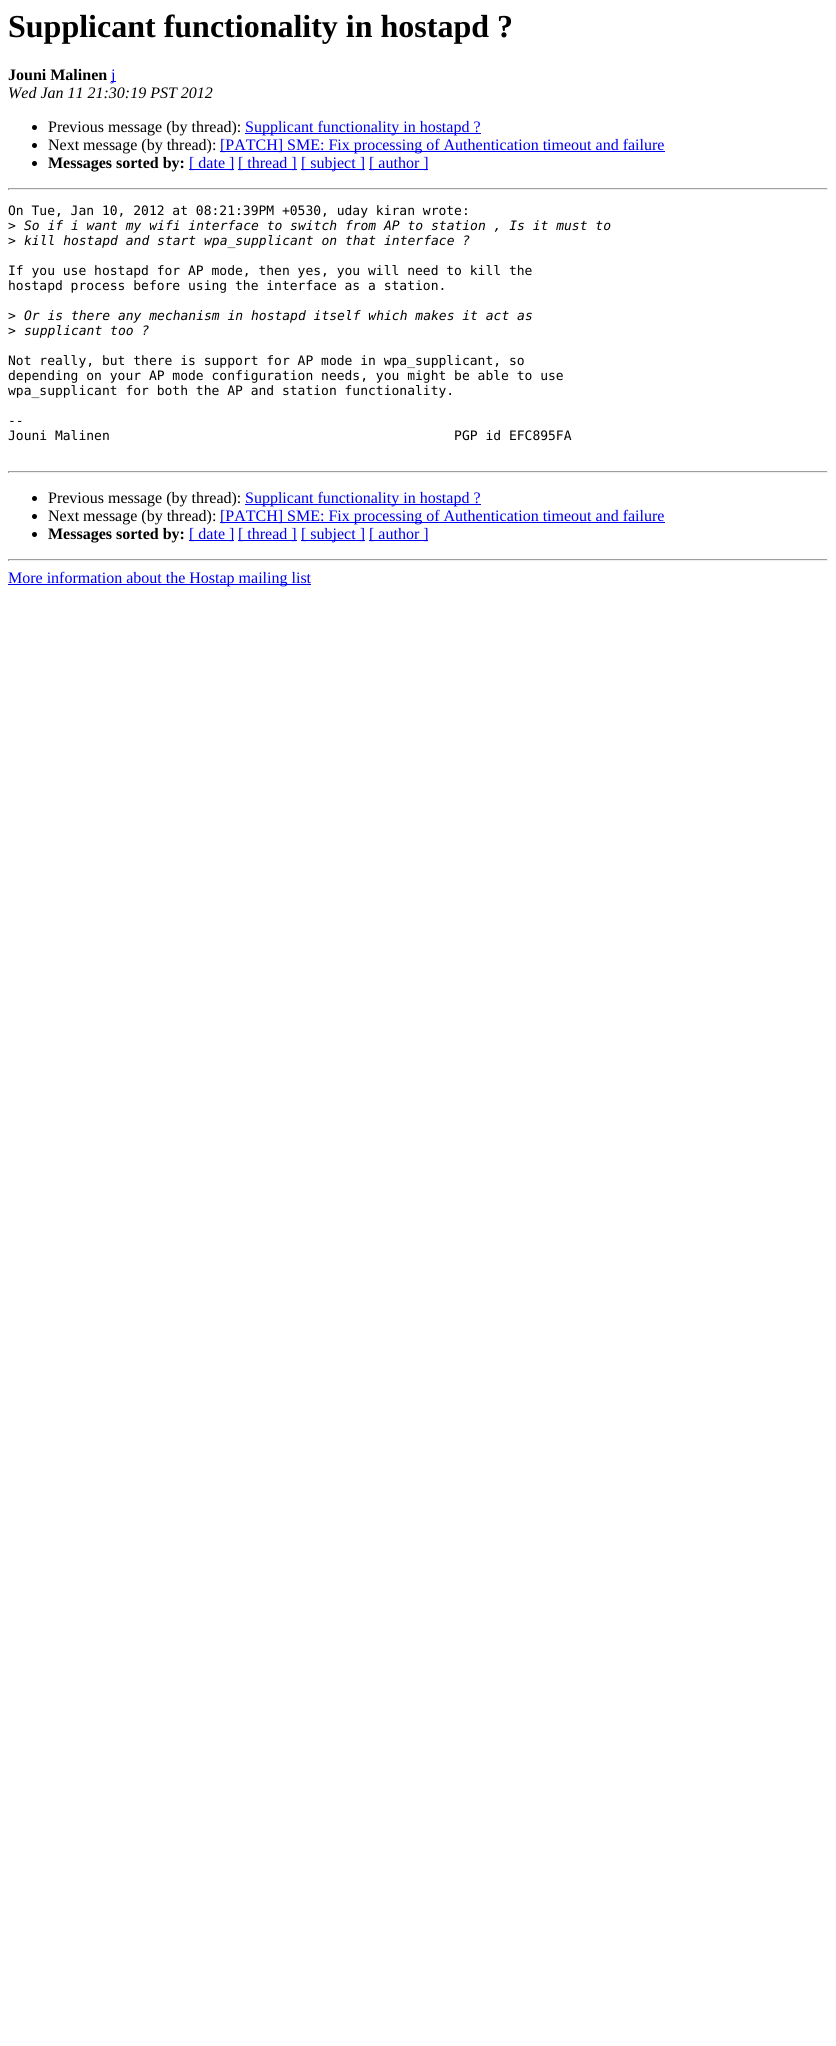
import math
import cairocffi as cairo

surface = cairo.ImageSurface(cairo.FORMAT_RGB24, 836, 2046)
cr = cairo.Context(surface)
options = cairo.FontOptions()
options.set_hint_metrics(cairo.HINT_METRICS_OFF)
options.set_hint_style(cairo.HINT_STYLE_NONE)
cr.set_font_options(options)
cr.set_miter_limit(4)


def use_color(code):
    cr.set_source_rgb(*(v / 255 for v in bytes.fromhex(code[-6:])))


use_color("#ffffff")
cr.paint()
cr.select_font_face("Liberation Serif", cairo.FONT_SLANT_NORMAL, cairo.FONT_WEIGHT_BOLD)
cr.set_font_size(32)
use_color("#000000")
cr.move_to(8, 37)
cr.show_text("Supplicant functionality in hostapd ?")
cr.set_font_size(16)
cr.move_to(8, 80)
cr.show_text("Jouni Malinen")
use_color("#0000ee")
cr.rectangle(111, 81, 5, 1)
cr.fill()
cr.select_font_face("Liberation Serif")
cr.move_to(111, 80)
cr.show_text("j")
cr.select_font_face("Liberation Serif", cairo.FONT_SLANT_ITALIC)
use_color("#000000")
cr.move_to(8, 98)
cr.show_text("Wed Jan 11 21:30:19 PST 2012")
cr.new_path()
cr.arc(34.5, 127.5, 2.5, 0, 2 * math.pi)
cr.fill()
cr.select_font_face("Liberation Serif")
cr.move_to(48, 132)
cr.show_text("Previous message (by thread):")
use_color("#0000ee")
cr.rectangle(245, 133, 236, 1)
cr.fill()
cr.move_to(245, 132)
cr.show_text("Supplicant functionality in hostapd ?")
use_color("#000000")
cr.new_path()
cr.arc(34.5, 145.5, 2.5, 0, 2 * math.pi)
cr.fill()
cr.move_to(48, 150)
cr.show_text("Next message (by thread):")
use_color("#0000ee")
cr.rectangle(220, 151, 445, 1)
cr.fill()
cr.move_to(220, 150)
cr.show_text("[PATCH] SME: Fix processing of Authentication timeout and failure")
use_color("#000000")
cr.new_path()
cr.arc(34.5, 163.5, 2.5, 0, 2 * math.pi)
cr.fill()
cr.select_font_face("Liberation Serif", cairo.FONT_SLANT_NORMAL, cairo.FONT_WEIGHT_BOLD)
cr.move_to(48, 168)
cr.show_text("Messages sorted by:")
use_color("#0000ee")
cr.rectangle(189, 169, 45, 1)
cr.fill()
cr.select_font_face("Liberation Serif")
cr.move_to(189, 168)
cr.show_text("[ date ]")
cr.rectangle(238, 169, 59, 1)
cr.fill()
cr.move_to(238, 168)
cr.show_text("[ thread ]")
cr.rectangle(301, 169, 64, 1)
cr.fill()
cr.move_to(301, 168)
cr.show_text("[ subject ]")
cr.rectangle(369, 169, 59, 1)
cr.fill()
cr.move_to(369, 168)
cr.show_text("[ author ]")
use_color("#9f9f9f")
cr.rectangle(8, 188, 820, 1)
cr.fill()
use_color("#eeeeee")
cr.rectangle(827, 188, 1, 2)
cr.fill()
cr.rectangle(8, 189, 820, 1)
cr.fill()
use_color("#9f9f9f")
cr.rectangle(8, 188, 1, 2)
cr.fill()
cr.select_font_face("DejaVu Sans Mono")
cr.set_font_size(13)
use_color("#000000")
cr.move_to(8, 215)
cr.show_text("On Tue, Jan 10, 2012 at 08:21:39PM +0530, uday kiran wrote:")
cr.move_to(8, 230)
cr.show_text(">")
cr.select_font_face("DejaVu Sans Mono", cairo.FONT_SLANT_ITALIC)
cr.move_to(24, 230)
cr.show_text("So if i want my wifi interface to switch from AP to station , Is it must to")
cr.select_font_face("DejaVu Sans Mono")
cr.move_to(8, 245)
cr.show_text(">")
cr.select_font_face("DejaVu Sans Mono", cairo.FONT_SLANT_ITALIC)
cr.move_to(24, 245)
cr.show_text("kill hostapd and start wpa_supplicant on that interface ?")
cr.select_font_face("DejaVu Sans Mono")
cr.move_to(8, 275)
cr.show_text("If you use hostapd for AP mode, then yes, you will need to kill the")
cr.move_to(8, 290)
cr.show_text("hostapd process before using the interface as a station.")
cr.move_to(8, 320)
cr.show_text(">")
cr.select_font_face("DejaVu Sans Mono", cairo.FONT_SLANT_ITALIC)
cr.move_to(24, 320)
cr.show_text("Or is there any mechanism in hostapd itself which makes it act as")
cr.select_font_face("DejaVu Sans Mono")
cr.move_to(8, 335)
cr.show_text(">")
cr.select_font_face("DejaVu Sans Mono", cairo.FONT_SLANT_ITALIC)
cr.move_to(24, 335)
cr.show_text("supplicant too ?")
cr.select_font_face("DejaVu Sans Mono")
cr.move_to(8, 365)
cr.show_text("Not really, but there is support for AP mode in wpa_supplicant, so")
cr.move_to(8, 380)
cr.show_text("depending on your AP mode configuration needs, you might be able to use")
cr.move_to(8, 395)
cr.show_text("wpa_supplicant for both the AP and station functionality.")
cr.move_to(8, 425)
cr.show_text("--")
cr.move_to(8, 440)
cr.show_text("Jouni Malinen                                            PGP id EFC895FA")
use_color("#9f9f9f")
cr.rectangle(8, 471, 820, 1)
cr.fill()
use_color("#eeeeee")
cr.rectangle(827, 471, 1, 2)
cr.fill()
cr.rectangle(8, 472, 820, 1)
cr.fill()
use_color("#9f9f9f")
cr.rectangle(8, 471, 1, 2)
cr.fill()
use_color("#000000")
cr.arc(34.5, 498.5, 2.5, 0, 2 * math.pi)
cr.fill()
cr.select_font_face("Liberation Serif")
cr.set_font_size(16)
cr.move_to(48, 503)
cr.show_text("Previous message (by thread):")
use_color("#0000ee")
cr.rectangle(245, 504, 236, 1)
cr.fill()
cr.move_to(245, 503)
cr.show_text("Supplicant functionality in hostapd ?")
use_color("#000000")
cr.new_path()
cr.arc(34.5, 516.5, 2.5, 0, 2 * math.pi)
cr.fill()
cr.move_to(48, 521)
cr.show_text("Next message (by thread):")
use_color("#0000ee")
cr.rectangle(220, 522, 445, 1)
cr.fill()
cr.move_to(220, 521)
cr.show_text("[PATCH] SME: Fix processing of Authentication timeout and failure")
use_color("#000000")
cr.new_path()
cr.arc(34.5, 534.5, 2.5, 0, 2 * math.pi)
cr.fill()
cr.select_font_face("Liberation Serif", cairo.FONT_SLANT_NORMAL, cairo.FONT_WEIGHT_BOLD)
cr.move_to(48, 539)
cr.show_text("Messages sorted by:")
use_color("#0000ee")
cr.rectangle(189, 540, 45, 1)
cr.fill()
cr.select_font_face("Liberation Serif")
cr.move_to(189, 539)
cr.show_text("[ date ]")
cr.rectangle(238, 540, 59, 1)
cr.fill()
cr.move_to(238, 539)
cr.show_text("[ thread ]")
cr.rectangle(301, 540, 64, 1)
cr.fill()
cr.move_to(301, 539)
cr.show_text("[ subject ]")
cr.rectangle(369, 540, 59, 1)
cr.fill()
cr.move_to(369, 539)
cr.show_text("[ author ]")
use_color("#9f9f9f")
cr.rectangle(8, 559, 820, 1)
cr.fill()
use_color("#eeeeee")
cr.rectangle(827, 559, 1, 2)
cr.fill()
cr.rectangle(8, 560, 820, 1)
cr.fill()
use_color("#9f9f9f")
cr.rectangle(8, 559, 1, 2)
cr.fill()
use_color("#0000ee")
cr.rectangle(8, 584, 303, 1)
cr.fill()
cr.move_to(8, 583)
cr.show_text("More information about the Hostap mailing list")
surface.write_to_png("result.png")
